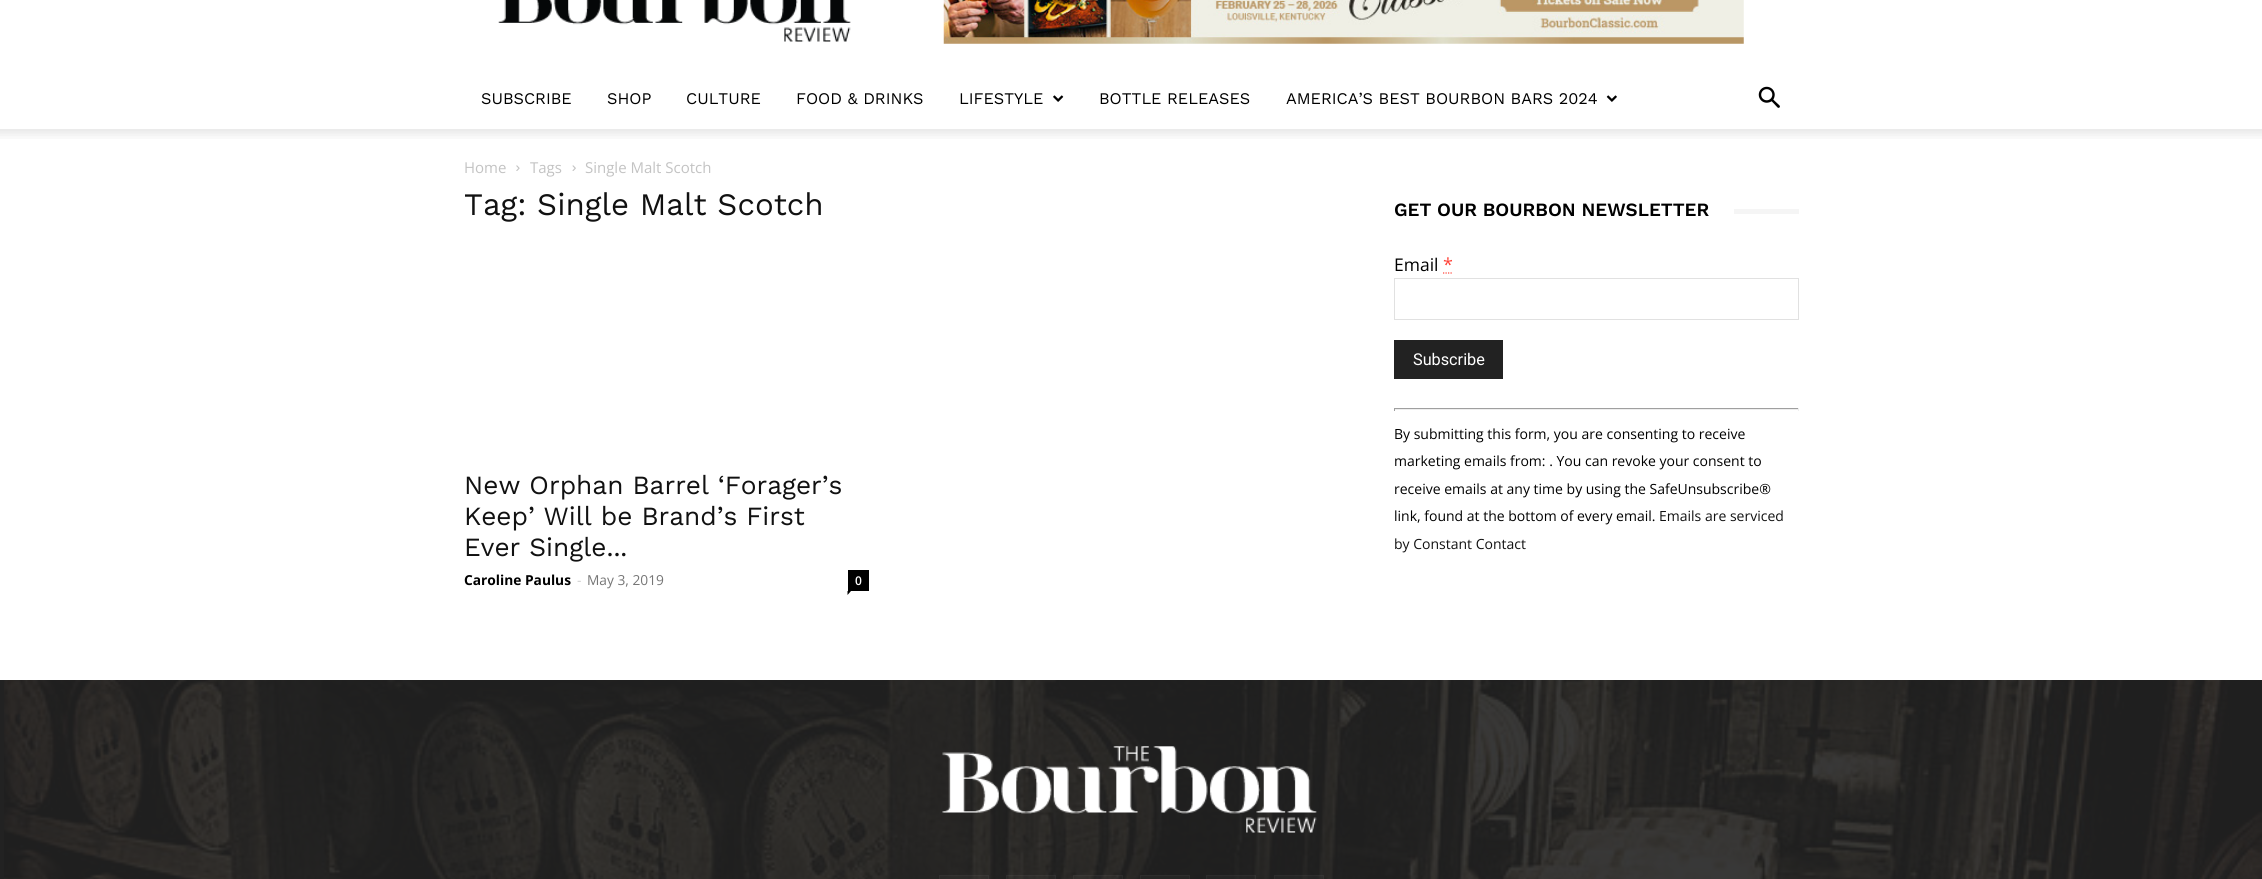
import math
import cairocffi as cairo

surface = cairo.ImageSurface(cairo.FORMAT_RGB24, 2262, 879)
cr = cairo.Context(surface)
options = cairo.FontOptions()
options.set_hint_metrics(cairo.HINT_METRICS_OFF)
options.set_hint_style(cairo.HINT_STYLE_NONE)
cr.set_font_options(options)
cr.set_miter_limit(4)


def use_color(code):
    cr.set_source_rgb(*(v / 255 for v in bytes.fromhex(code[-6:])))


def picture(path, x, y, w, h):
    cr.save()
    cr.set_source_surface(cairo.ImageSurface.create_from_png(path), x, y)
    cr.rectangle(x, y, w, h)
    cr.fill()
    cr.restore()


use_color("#ffffff")
cr.paint()
picture("img1.png", 498, 0, 353, 42)
picture("img2.png", 943, 0, 801, 44)
cr.select_font_face("Work Sans")
cr.set_font_size(16.25)
use_color("#000000")
cr.move_to(481, 104)
cr.show_text("SUBSCRIBE")
cr.move_to(607, 104)
cr.show_text("SHOP")
cr.move_to(686, 104)
cr.show_text("CULTURE")
cr.move_to(796, 104)
cr.show_text("FOOD & DRINKS")
cr.move_to(959, 104)
cr.show_text("LIFESTYLE")
picture("img3.png", 1053, 95, 11, 7)
cr.move_to(1099, 104)
cr.show_text("BOTTLE RELEASES")
cr.move_to(1286, 104)
cr.show_text("AMERICA’S BEST BOURBON BARS 2024")
picture("img4.png", 1606, 95, 11, 7)
picture("img5.png", 1758, 86, 22, 22)
picture("img6.png", 0, 129, 2262, 10)
cr.select_font_face("Open Sans")
cr.set_font_size(15)
use_color("#c3c3c3")
cr.move_to(464, 173)
cr.show_text("Home")
picture("img7.png", 516, 165, 4, 6)
cr.move_to(530, 173)
cr.show_text("Tags")
picture("img8.png", 572, 165, 4, 6)
cr.move_to(585, 173)
cr.show_text("Single Malt Scotch")
cr.select_font_face("Work Sans")
cr.set_font_size(31.25)
use_color("#111111")
cr.move_to(464, 215)
cr.show_text("Tag: Single Malt Scotch")
cr.set_font_size(26.25)
cr.move_to(464, 494)
cr.show_text("New Orphan Barrel ‘Forager’s")
cr.move_to(464, 525)
cr.show_text("Keep’ Will be Brand’s First")
cr.move_to(464, 556)
cr.show_text("Ever Single...")
cr.select_font_face("Open Sans", cairo.FONT_SLANT_NORMAL, cairo.FONT_WEIGHT_BOLD)
cr.set_font_size(13.75)
use_color("#000000")
cr.move_to(464, 585)
cr.show_text("Caroline Paulus")
cr.select_font_face("Open Sans")
use_color("#cccccc")
cr.move_to(577, 585)
cr.show_text("-")
use_color("#767676")
cr.move_to(587, 585)
cr.show_text("May 3, 2019")
use_color("#000000")
cr.rectangle(848, 570, 21, 21)
cr.fill()
cr.select_font_face("Open Sans SemiBold")
cr.set_font_size(12)
use_color("#ffffff")
cr.move_to(855, 585)
cr.show_text("0")
use_color("#000000")
cr.new_path()
cr.move_to(847.5, 591)
cr.line_to(851, 591)
cr.line_to(847.5, 595)
cr.close_path()
cr.fill()
cr.select_font_face("Work Sans SemiBold")
cr.set_font_size(18.75)
cr.move_to(1394, 216)
cr.show_text("GET OUR BOURBON NEWSLETTER")
use_color("#f5f5f5")
cr.rectangle(1734, 209, 65, 5)
cr.fill()
cr.select_font_face("Open Sans")
cr.set_font_size(17.5)
use_color("#000000")
cr.move_to(1394, 271)
cr.show_text("Email")
cr.set_font_size(18)
use_color("#ff4136")
cr.move_to(1443, 271)
cr.show_text("*")
cr.new_path()
cr.move_to(1443, 273)
cr.line_to(1452.5, 273)
cr.set_line_width(1.2)
cr.set_dash([1.25, 1.25])
cr.stroke()
cr.rectangle(1394.5, 278.5, 404, 41)
use_color("#e1e1e1")
cr.set_line_width(1)
cr.set_dash([])
cr.stroke()
use_color("#222222")
cr.rectangle(1394, 340, 109, 39)
cr.fill()
cr.select_font_face("Roboto")
cr.set_font_size(16.25)
use_color("#ffffff")
cr.move_to(1413, 365)
cr.show_text("Subscribe")
use_color("#9f9f9f")
cr.rectangle(1394, 408, 405, 1)
cr.fill()
use_color("#eeeeee")
cr.rectangle(1798, 408, 1, 3)
cr.fill()
cr.rectangle(1394, 409, 405, 1)
cr.fill()
use_color("#9f9f9f")
cr.rectangle(1394, 408, 1, 3)
cr.fill()
cr.select_font_face("Open Sans")
cr.set_font_size(14)
use_color("#000000")
cr.move_to(1394, 439)
cr.show_text("By submitting this form, you are consenting to receive")
cr.move_to(1394, 466)
cr.show_text("marketing emails from: . You can revoke your consent to")
cr.move_to(1394, 494)
cr.show_text("receive emails at any time by using the SafeUnsubscribe®")
cr.move_to(1394, 521)
cr.show_text("link, found at the bottom of every email.")
use_color("#111111")
cr.move_to(1659, 521)
cr.show_text("Emails are serviced")
cr.move_to(1394, 549)
cr.show_text("by Constant Contact")
use_color("#222222")
cr.rectangle(0, 680, 2262, 199)
cr.fill()
picture("img9.png", 4, 680, 2258, 199)
picture("img10.png", 942, 746, 375, 87)
cr.set_source_rgba(1, 1, 1, 0.03)
cr.rectangle(939, 875, 50, 4)
cr.fill()
cr.rectangle(939.5, 875.5, 49, 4)
cr.stroke()
cr.rectangle(1006, 875, 50, 4)
cr.fill()
cr.rectangle(1006.5, 875.5, 49, 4)
cr.stroke()
cr.rectangle(1073, 875, 50, 4)
cr.fill()
cr.rectangle(1073.5, 875.5, 49, 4)
cr.stroke()
use_color("#262625")
cr.rectangle(1140.5, 875.5, 49, 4)
cr.fill_preserve()
use_color("#2d2d2c")
cr.stroke()
cr.set_source_rgba(1, 1, 1, 0.03)
cr.rectangle(1206, 875, 50, 4)
cr.fill()
cr.rectangle(1206.5, 875.5, 49, 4)
cr.stroke()
cr.rectangle(1274, 875, 50, 4)
cr.fill()
cr.rectangle(1274.5, 875.5, 49, 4)
cr.stroke()
surface.write_to_png("result.png")
